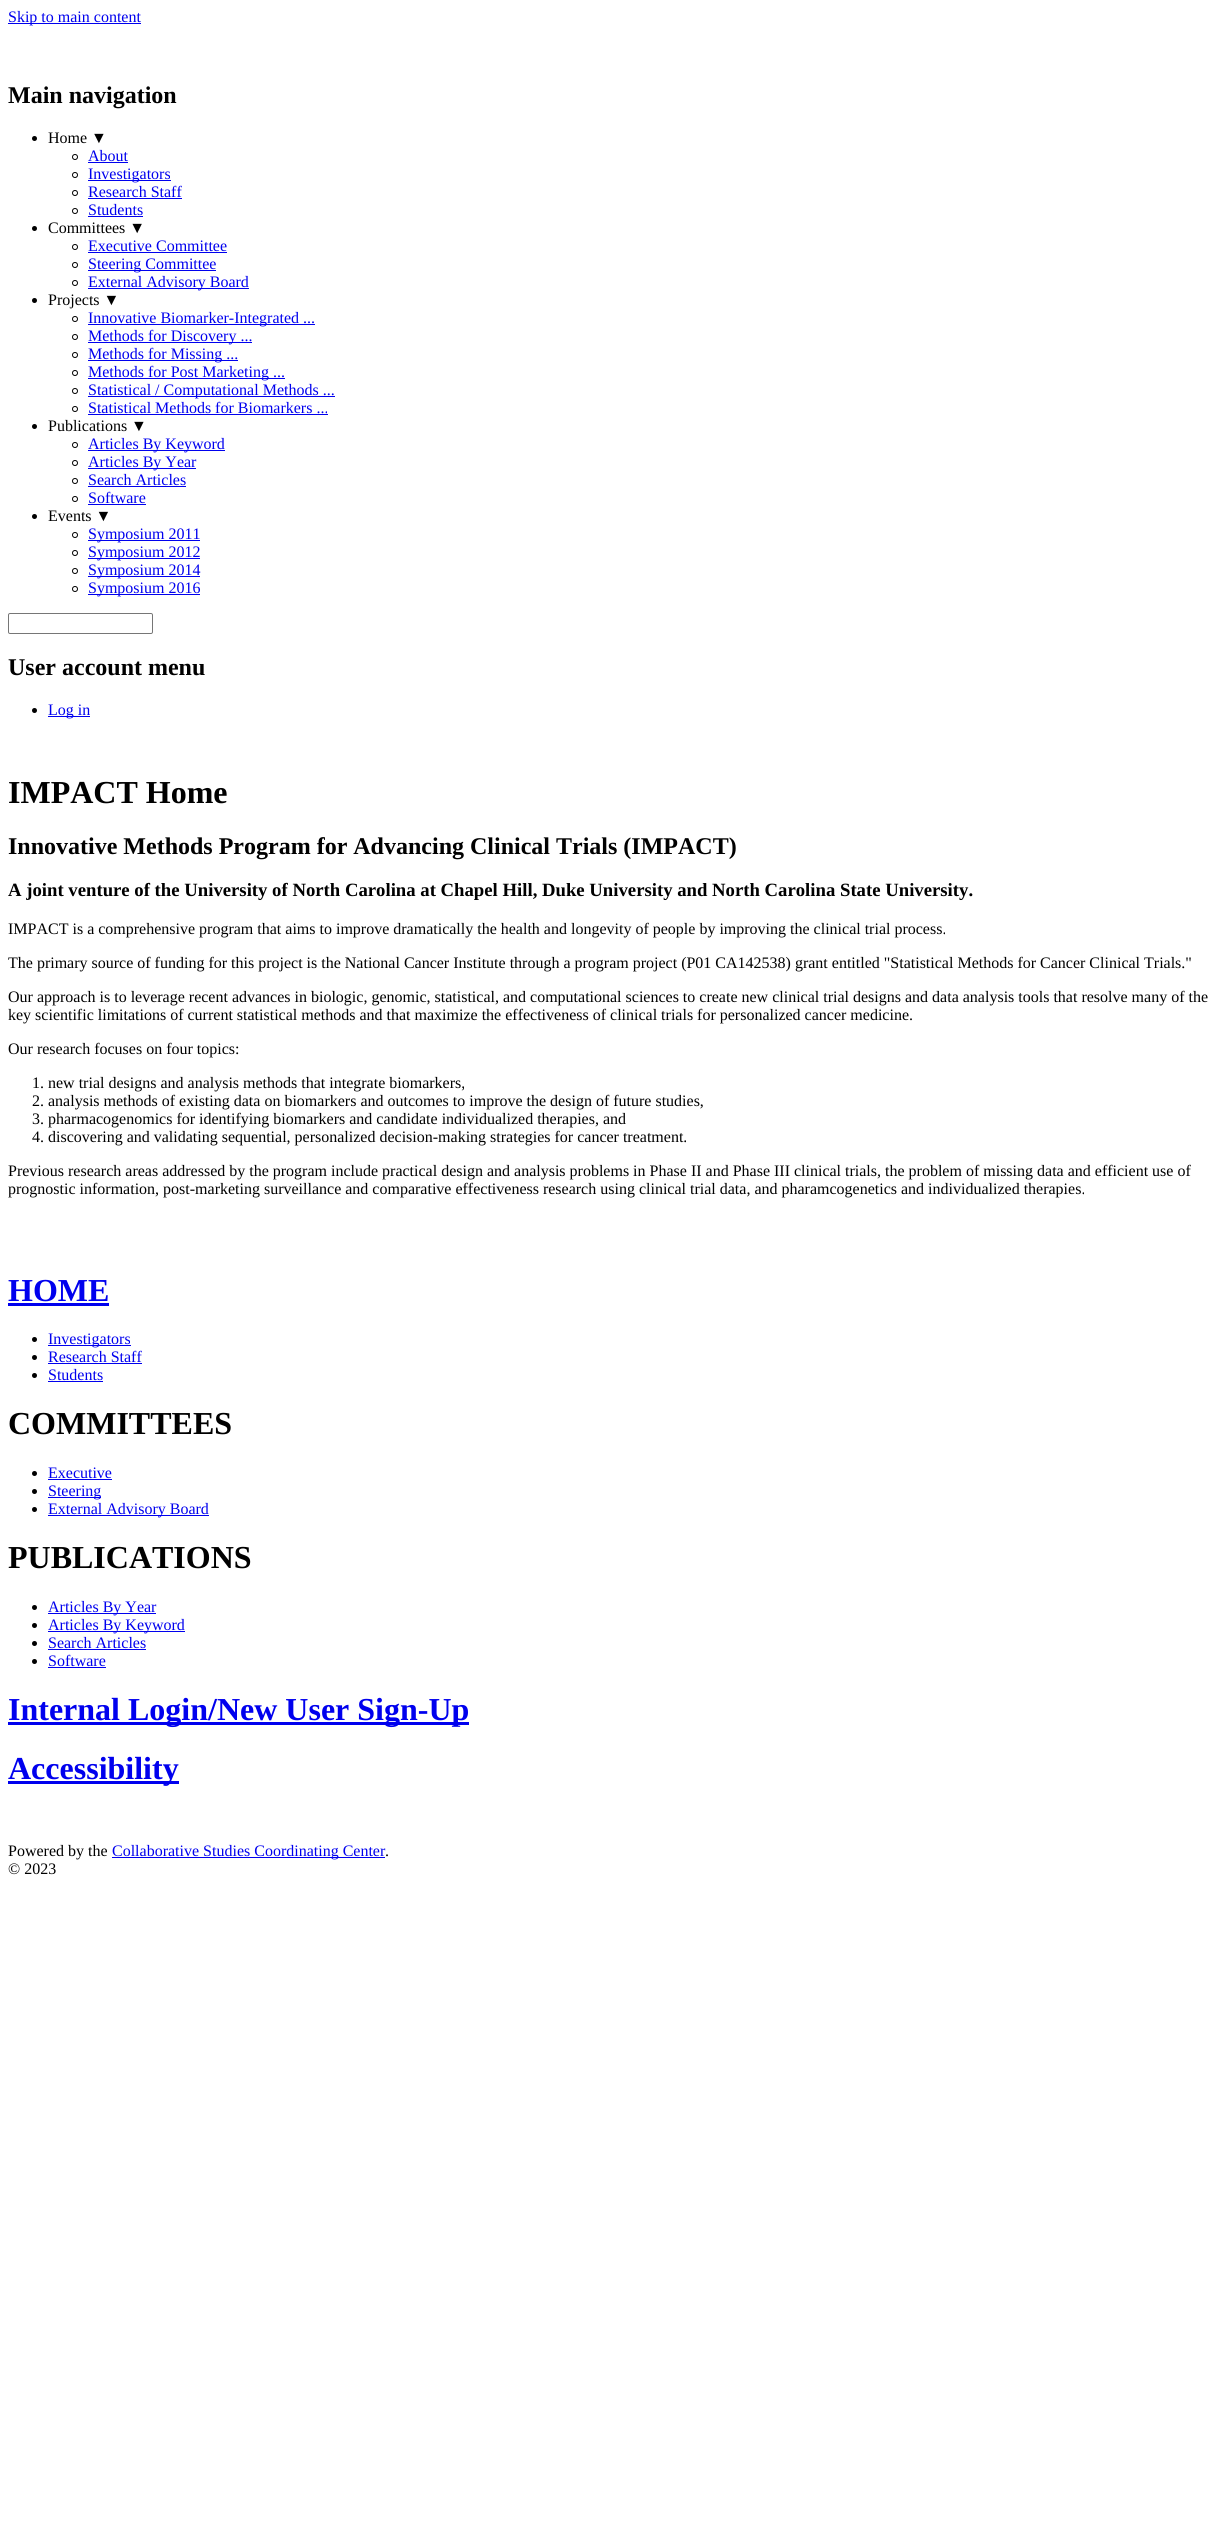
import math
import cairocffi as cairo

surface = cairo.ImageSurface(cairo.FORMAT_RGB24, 1232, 2546)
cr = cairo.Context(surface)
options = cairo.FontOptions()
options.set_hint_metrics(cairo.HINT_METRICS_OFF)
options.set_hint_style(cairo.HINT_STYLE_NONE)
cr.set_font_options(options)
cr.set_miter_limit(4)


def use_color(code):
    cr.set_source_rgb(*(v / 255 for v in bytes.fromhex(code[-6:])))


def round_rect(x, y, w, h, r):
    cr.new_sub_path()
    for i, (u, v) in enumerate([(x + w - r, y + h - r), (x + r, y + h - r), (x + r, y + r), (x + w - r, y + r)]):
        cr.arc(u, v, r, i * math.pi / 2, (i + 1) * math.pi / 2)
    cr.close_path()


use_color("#ffffff")
cr.paint()
use_color("#0000ee")
cr.rectangle(8, 23, 133, 1)
cr.fill()
cr.select_font_face("Liberation Serif")
cr.set_font_size(16)
cr.move_to(8, 22)
cr.show_text("Skip to main content")
cr.select_font_face("Liberation Serif", cairo.FONT_SLANT_NORMAL, cairo.FONT_WEIGHT_BOLD)
cr.set_font_size(24)
use_color("#000000")
cr.move_to(8, 103)
cr.show_text("Main navigation")
cr.new_path()
cr.arc(34.5, 138.5, 2.5, 0, 2 * math.pi)
cr.fill()
cr.select_font_face("Liberation Serif")
cr.set_font_size(16)
cr.move_to(48, 143)
cr.show_text("Home ▼")
cr.new_path()
cr.arc(75, 157, 2.5, 0, 2 * math.pi)
cr.set_line_width(1)
cr.stroke()
use_color("#0000ee")
cr.move_to(88, 161)
cr.show_text("About")
cr.rectangle(88, 162, 40, 1)
cr.fill()
cr.arc(75, 175, 2.5, 0, 2 * math.pi)
use_color("#000000")
cr.stroke()
use_color("#0000ee")
cr.rectangle(88, 180, 83, 1)
cr.fill()
cr.move_to(88, 179)
cr.show_text("Investigators")
cr.new_path()
cr.arc(75, 193, 2.5, 0, 2 * math.pi)
use_color("#000000")
cr.stroke()
use_color("#0000ee")
cr.move_to(88, 197)
cr.show_text("Research Staff")
cr.rectangle(88, 198, 94, 1)
cr.fill()
cr.arc(75, 211, 2.5, 0, 2 * math.pi)
use_color("#000000")
cr.stroke()
use_color("#0000ee")
cr.move_to(88, 215)
cr.show_text("Students")
cr.rectangle(88, 216, 55, 1)
cr.fill()
use_color("#000000")
cr.arc(34.5, 228.5, 2.5, 0, 2 * math.pi)
cr.fill()
cr.move_to(48, 233)
cr.show_text("Committees ▼")
cr.new_path()
cr.arc(75, 247, 2.5, 0, 2 * math.pi)
cr.stroke()
use_color("#0000ee")
cr.move_to(88, 251)
cr.show_text("Executive Committee")
cr.rectangle(88, 252, 139, 1)
cr.fill()
cr.arc(75, 265, 2.5, 0, 2 * math.pi)
use_color("#000000")
cr.stroke()
use_color("#0000ee")
cr.rectangle(88, 270, 128, 1)
cr.fill()
cr.move_to(88, 269)
cr.show_text("Steering Committee")
cr.new_path()
cr.arc(75, 283, 2.5, 0, 2 * math.pi)
use_color("#000000")
cr.stroke()
use_color("#0000ee")
cr.rectangle(88, 288, 161, 1)
cr.fill()
cr.move_to(88, 287)
cr.show_text("External Advisory Board")
use_color("#000000")
cr.new_path()
cr.arc(34.5, 300.5, 2.5, 0, 2 * math.pi)
cr.fill()
cr.move_to(48, 305)
cr.show_text("Projects ▼")
cr.new_path()
cr.arc(75, 319, 2.5, 0, 2 * math.pi)
cr.stroke()
use_color("#0000ee")
cr.rectangle(88, 324, 227, 1)
cr.fill()
cr.move_to(88, 323)
cr.show_text("Innovative Biomarker-Integrated ...")
cr.new_path()
cr.arc(75, 337, 2.5, 0, 2 * math.pi)
use_color("#000000")
cr.stroke()
use_color("#0000ee")
cr.rectangle(88, 342, 164, 1)
cr.fill()
cr.move_to(88, 341)
cr.show_text("Methods for Discovery ...")
cr.new_path()
cr.arc(75, 355, 2.5, 0, 2 * math.pi)
use_color("#000000")
cr.stroke()
use_color("#0000ee")
cr.rectangle(88, 360, 150, 1)
cr.fill()
cr.move_to(88, 359)
cr.show_text("Methods for Missing ...")
cr.new_path()
cr.arc(75, 373, 2.5, 0, 2 * math.pi)
use_color("#000000")
cr.stroke()
use_color("#0000ee")
cr.rectangle(88, 378, 197, 1)
cr.fill()
cr.move_to(88, 377)
cr.show_text("Methods for Post Marketing ...")
cr.new_path()
cr.arc(75, 391, 2.5, 0, 2 * math.pi)
use_color("#000000")
cr.stroke()
use_color("#0000ee")
cr.rectangle(88, 396, 247, 1)
cr.fill()
cr.move_to(88, 395)
cr.show_text("Statistical / Computational Methods ...")
cr.new_path()
cr.arc(75, 409, 2.5, 0, 2 * math.pi)
use_color("#000000")
cr.stroke()
use_color("#0000ee")
cr.move_to(88, 413)
cr.show_text("Statistical Methods for Biomarkers ...")
cr.rectangle(88, 414, 240, 1)
cr.fill()
use_color("#000000")
cr.arc(34.5, 426.5, 2.5, 0, 2 * math.pi)
cr.fill()
cr.move_to(48, 431)
cr.show_text("Publications ▼")
cr.new_path()
cr.arc(75, 445, 2.5, 0, 2 * math.pi)
cr.stroke()
use_color("#0000ee")
cr.rectangle(88, 450, 137, 1)
cr.fill()
cr.move_to(88, 449)
cr.show_text("Articles By Keyword")
cr.new_path()
cr.arc(75, 463, 2.5, 0, 2 * math.pi)
use_color("#000000")
cr.stroke()
use_color("#0000ee")
cr.rectangle(88, 468, 108, 1)
cr.fill()
cr.move_to(88, 467)
cr.show_text("Articles By Year")
cr.new_path()
cr.arc(75, 481, 2.5, 0, 2 * math.pi)
use_color("#000000")
cr.stroke()
use_color("#0000ee")
cr.move_to(88, 485)
cr.show_text("Search Articles")
cr.rectangle(88, 486, 98, 1)
cr.fill()
cr.arc(75, 499, 2.5, 0, 2 * math.pi)
use_color("#000000")
cr.stroke()
use_color("#0000ee")
cr.move_to(88, 503)
cr.show_text("Software")
cr.rectangle(88, 504, 58, 1)
cr.fill()
use_color("#000000")
cr.arc(34.5, 516.5, 2.5, 0, 2 * math.pi)
cr.fill()
cr.move_to(48, 521)
cr.show_text("Events ▼")
cr.new_path()
cr.arc(75, 535, 2.5, 0, 2 * math.pi)
cr.stroke()
use_color("#0000ee")
cr.rectangle(88, 540, 112, 1)
cr.fill()
cr.move_to(88, 539)
cr.show_text("Symposium 2011")
cr.new_path()
cr.arc(75, 553, 2.5, 0, 2 * math.pi)
use_color("#000000")
cr.stroke()
use_color("#0000ee")
cr.rectangle(88, 558, 112, 1)
cr.fill()
cr.move_to(88, 557)
cr.show_text("Symposium 2012")
cr.new_path()
cr.arc(75, 571, 2.5, 0, 2 * math.pi)
use_color("#000000")
cr.stroke()
use_color("#0000ee")
cr.rectangle(88, 576, 112, 1)
cr.fill()
cr.move_to(88, 575)
cr.show_text("Symposium 2014")
cr.new_path()
cr.arc(75, 589, 2.5, 0, 2 * math.pi)
use_color("#000000")
cr.stroke()
use_color("#0000ee")
cr.rectangle(88, 594, 112, 1)
cr.fill()
cr.move_to(88, 593)
cr.show_text("Symposium 2016")
round_rect(8.5, 613.5, 144, 20, 1.5)
use_color("#767676")
cr.stroke()
cr.select_font_face("Liberation Serif", cairo.FONT_SLANT_NORMAL, cairo.FONT_WEIGHT_BOLD)
cr.set_font_size(24)
use_color("#000000")
cr.move_to(8, 675)
cr.show_text("User account menu")
cr.new_path()
cr.arc(34.5, 710.5, 2.5, 0, 2 * math.pi)
cr.fill()
use_color("#0000ee")
cr.rectangle(48, 716, 42, 1)
cr.fill()
cr.select_font_face("Liberation Serif")
cr.set_font_size(16)
cr.move_to(48, 715)
cr.show_text("Log in")
cr.select_font_face("Liberation Serif", cairo.FONT_SLANT_NORMAL, cairo.FONT_WEIGHT_BOLD)
cr.set_font_size(32)
use_color("#000000")
cr.move_to(8, 803)
cr.show_text("IMPACT Home")
cr.set_font_size(24)
cr.move_to(8, 854)
cr.show_text("Innovative Methods Program for Advancing Clinical Trials (IMPACT)")
cr.set_font_size(18.72)
cr.move_to(8, 896)
cr.show_text("A joint venture of the University of North Carolina at Chapel Hill, Duke University and North Carolina State University.")
cr.select_font_face("Liberation Serif")
cr.set_font_size(16)
cr.move_to(8, 934)
cr.show_text("IMPACT is a comprehensive program that aims to improve dramatically the health and longevity of people by improving the clinical trial process.")
cr.move_to(8, 968)
cr.show_text("The primary source of funding for this project is the National Cancer Institute through a program project (P01 CA142538) grant entitled \"Statistical Methods for Cancer Clinical Trials.\"")
cr.move_to(8, 1002)
cr.show_text("Our approach is to leverage recent advances in biologic, genomic, statistical, and computational sciences to create new clinical trial designs and data analysis tools that resolve many of the")
cr.move_to(8, 1020)
cr.show_text("key scientific limitations of current statistical methods and that maximize the effectiveness of clinical trials for personalized cancer medicine.")
cr.move_to(8, 1054)
cr.show_text("Our research focuses on four topics:")
cr.move_to(32, 1088)
cr.show_text("1. new trial designs and analysis methods that integrate biomarkers,")
cr.move_to(32, 1106)
cr.show_text("2. analysis methods of existing data on biomarkers and outcomes to improve the design of future studies,")
cr.move_to(32, 1124)
cr.show_text("3. pharmacogenomics for identifying biomarkers and candidate individualized therapies, and")
cr.move_to(32, 1142)
cr.show_text("4. discovering and validating sequential, personalized decision-making strategies for cancer treatment.")
cr.move_to(8, 1176)
cr.show_text("Previous research areas addressed by the program include practical design and analysis problems in Phase II and Phase III clinical trials, the problem of missing data and efficient use of")
cr.move_to(8, 1194)
cr.show_text("prognostic information, post-marketing surveillance and comparative effectiveness research using clinical trial data, and pharamcogenetics and individualized therapies.")
cr.select_font_face("Liberation Serif", cairo.FONT_SLANT_NORMAL, cairo.FONT_WEIGHT_BOLD)
cr.set_font_size(32)
use_color("#0000ee")
cr.move_to(8, 1301)
cr.show_text("HOME")
cr.rectangle(8, 1303, 101, 3)
cr.fill()
use_color("#000000")
cr.arc(34.5, 1339.5, 2.5, 0, 2 * math.pi)
cr.fill()
use_color("#0000ee")
cr.rectangle(48, 1345, 83, 1)
cr.fill()
cr.select_font_face("Liberation Serif")
cr.set_font_size(16)
cr.move_to(48, 1344)
cr.show_text("Investigators")
use_color("#000000")
cr.new_path()
cr.arc(34.5, 1357.5, 2.5, 0, 2 * math.pi)
cr.fill()
use_color("#0000ee")
cr.move_to(48, 1362)
cr.show_text("Research Staff")
cr.rectangle(48, 1363, 94, 1)
cr.fill()
use_color("#000000")
cr.arc(34.5, 1375.5, 2.5, 0, 2 * math.pi)
cr.fill()
use_color("#0000ee")
cr.move_to(48, 1380)
cr.show_text("Students")
cr.rectangle(48, 1381, 55, 1)
cr.fill()
cr.select_font_face("Liberation Serif", cairo.FONT_SLANT_NORMAL, cairo.FONT_WEIGHT_BOLD)
cr.set_font_size(32)
use_color("#000000")
cr.move_to(8, 1434)
cr.show_text("COMMITTEES")
cr.new_path()
cr.arc(34.5, 1473.5, 2.5, 0, 2 * math.pi)
cr.fill()
cr.select_font_face("Liberation Serif")
cr.set_font_size(16)
use_color("#0000ee")
cr.move_to(48, 1478)
cr.show_text("Executive")
cr.rectangle(48, 1479, 64, 1)
cr.fill()
use_color("#000000")
cr.arc(34.5, 1491.5, 2.5, 0, 2 * math.pi)
cr.fill()
use_color("#0000ee")
cr.rectangle(48, 1497, 53, 1)
cr.fill()
cr.move_to(48, 1496)
cr.show_text("Steering")
use_color("#000000")
cr.new_path()
cr.arc(34.5, 1509.5, 2.5, 0, 2 * math.pi)
cr.fill()
use_color("#0000ee")
cr.rectangle(48, 1515, 161, 1)
cr.fill()
cr.move_to(48, 1514)
cr.show_text("External Advisory Board")
cr.select_font_face("Liberation Serif", cairo.FONT_SLANT_NORMAL, cairo.FONT_WEIGHT_BOLD)
cr.set_font_size(32)
use_color("#000000")
cr.move_to(8, 1568)
cr.show_text("PUBLICATIONS")
cr.new_path()
cr.arc(34.5, 1607.5, 2.5, 0, 2 * math.pi)
cr.fill()
use_color("#0000ee")
cr.rectangle(48, 1613, 108, 1)
cr.fill()
cr.select_font_face("Liberation Serif")
cr.set_font_size(16)
cr.move_to(48, 1612)
cr.show_text("Articles By Year")
use_color("#000000")
cr.new_path()
cr.arc(34.5, 1625.5, 2.5, 0, 2 * math.pi)
cr.fill()
use_color("#0000ee")
cr.rectangle(48, 1631, 137, 1)
cr.fill()
cr.move_to(48, 1630)
cr.show_text("Articles By Keyword")
use_color("#000000")
cr.new_path()
cr.arc(34.5, 1643.5, 2.5, 0, 2 * math.pi)
cr.fill()
use_color("#0000ee")
cr.move_to(48, 1648)
cr.show_text("Search Articles")
cr.rectangle(48, 1649, 98, 1)
cr.fill()
use_color("#000000")
cr.arc(34.5, 1661.5, 2.5, 0, 2 * math.pi)
cr.fill()
use_color("#0000ee")
cr.move_to(48, 1666)
cr.show_text("Software")
cr.rectangle(48, 1667, 58, 1)
cr.fill()
cr.rectangle(8, 1722, 461, 3)
cr.fill()
cr.select_font_face("Liberation Serif", cairo.FONT_SLANT_NORMAL, cairo.FONT_WEIGHT_BOLD)
cr.set_font_size(32)
cr.move_to(8, 1720)
cr.show_text("Internal Login/New User Sign-Up")
cr.rectangle(8, 1781, 171, 3)
cr.fill()
cr.move_to(8, 1779)
cr.show_text("Accessibility")
cr.select_font_face("Liberation Serif")
cr.set_font_size(16)
use_color("#000000")
cr.move_to(8, 1856)
cr.show_text("Powered by the")
use_color("#0000ee")
cr.rectangle(112, 1857, 273, 1)
cr.fill()
cr.move_to(112, 1856)
cr.show_text("Collaborative Studies Coordinating Center")
use_color("#000000")
cr.move_to(385, 1856)
cr.show_text(".")
cr.move_to(8, 1874)
cr.show_text("© 2023")
surface.write_to_png("result.png")
